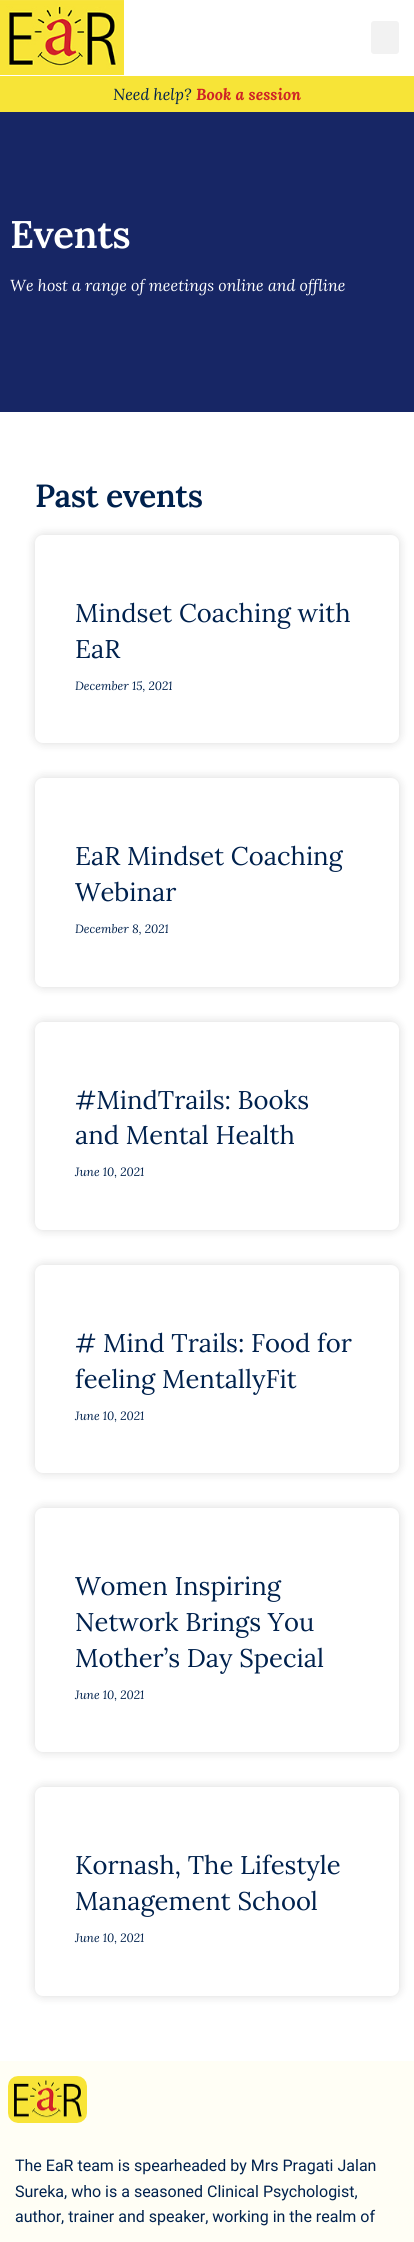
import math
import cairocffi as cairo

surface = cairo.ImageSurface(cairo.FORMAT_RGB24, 414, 2242)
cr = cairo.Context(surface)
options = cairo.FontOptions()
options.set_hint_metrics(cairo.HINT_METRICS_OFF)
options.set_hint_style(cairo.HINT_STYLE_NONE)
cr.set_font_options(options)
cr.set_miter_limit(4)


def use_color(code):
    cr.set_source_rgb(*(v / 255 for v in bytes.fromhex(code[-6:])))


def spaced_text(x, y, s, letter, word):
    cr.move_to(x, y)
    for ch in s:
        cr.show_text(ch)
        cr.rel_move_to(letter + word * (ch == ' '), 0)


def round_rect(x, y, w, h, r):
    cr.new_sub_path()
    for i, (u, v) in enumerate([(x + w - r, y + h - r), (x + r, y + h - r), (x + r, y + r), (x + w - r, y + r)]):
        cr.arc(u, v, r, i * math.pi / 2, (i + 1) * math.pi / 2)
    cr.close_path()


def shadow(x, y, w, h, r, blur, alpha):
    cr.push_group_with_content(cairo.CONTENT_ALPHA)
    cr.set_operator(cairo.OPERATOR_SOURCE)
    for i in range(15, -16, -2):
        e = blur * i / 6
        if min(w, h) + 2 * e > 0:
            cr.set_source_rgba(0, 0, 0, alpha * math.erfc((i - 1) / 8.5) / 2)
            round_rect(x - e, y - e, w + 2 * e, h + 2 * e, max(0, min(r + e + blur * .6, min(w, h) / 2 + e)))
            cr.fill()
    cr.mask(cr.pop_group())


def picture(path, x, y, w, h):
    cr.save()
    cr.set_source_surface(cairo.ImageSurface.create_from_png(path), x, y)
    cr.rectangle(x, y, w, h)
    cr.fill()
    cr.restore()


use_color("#ffffff")
cr.paint()
picture("img1.png", 0, 0, 124, 75)
use_color("#f2f2f2")
round_rect(371, 21, 28, 33, 3)
cr.fill()
use_color("#f7e437")
cr.rectangle(0, 76, 414, 36)
cr.fill()
cr.select_font_face("Lora", cairo.FONT_SLANT_ITALIC)
cr.set_font_size(16)
use_color("#00214d")
cr.move_to(113, 100)
cr.show_text("Need help?")
cr.select_font_face("Lora", cairo.FONT_SLANT_ITALIC, cairo.FONT_WEIGHT_BOLD)
use_color("#ce2426")
cr.move_to(196, 100)
cr.show_text("Book a session")
use_color("#172665")
cr.rectangle(0, 112, 414, 300)
cr.fill()
cr.select_font_face("Lora SemiBold")
cr.set_font_size(38.5)
use_color("#ffffff")
spaced_text(10, 248, "Events", -0.5, 0)
cr.select_font_face("Lora", cairo.FONT_SLANT_ITALIC)
cr.set_font_size(16)
cr.move_to(10, 291)
cr.show_text("We host a range of meetings online and offline")
cr.select_font_face("Lora SemiBold")
cr.set_font_size(32)
use_color("#00214d")
spaced_text(35, 507, "Past events", -0.5, 0)
use_color("#000000")
shadow(35, 535, 364, 208, 8, 5, 0.15)
use_color("#ffffff")
round_rect(35, 535, 364, 208, 8)
cr.fill()
cr.select_font_face("Lora")
cr.set_font_size(25.6)
use_color("#00214d")
cr.move_to(75, 622)
cr.show_text("Mindset Coaching with")
cr.move_to(75, 658)
cr.show_text("EaR")
cr.select_font_face("Lora", cairo.FONT_SLANT_ITALIC)
cr.set_font_size(12)
cr.move_to(75, 690)
cr.show_text("December 15, 2021")
use_color("#000000")
shadow(35, 778, 364, 209, 8, 5, 0.15)
use_color("#ffffff")
round_rect(35, 778, 364, 209, 8)
cr.fill()
cr.select_font_face("Lora")
cr.set_font_size(25.6)
use_color("#00214d")
cr.move_to(75, 865)
cr.show_text("EaR Mindset Coaching")
cr.move_to(75, 901)
cr.show_text("Webinar")
cr.select_font_face("Lora", cairo.FONT_SLANT_ITALIC)
cr.set_font_size(12)
cr.move_to(75, 933)
cr.show_text("December 8, 2021")
use_color("#000000")
shadow(35, 1022, 364, 208, 8, 5, 0.15)
use_color("#ffffff")
round_rect(35, 1022, 364, 208, 8)
cr.fill()
cr.select_font_face("Lora")
cr.set_font_size(25.6)
use_color("#00214d")
cr.move_to(75, 1109)
cr.show_text("#MindTrails: Books")
cr.move_to(75, 1144)
cr.show_text("and Mental Health")
cr.select_font_face("Lora", cairo.FONT_SLANT_ITALIC)
cr.set_font_size(12)
cr.move_to(75, 1176)
cr.show_text("June 10, 2021")
use_color("#000000")
shadow(35, 1265, 364, 208, 8, 5, 0.15)
use_color("#ffffff")
round_rect(35, 1265, 364, 208, 8)
cr.fill()
cr.select_font_face("Lora")
cr.set_font_size(25.6)
use_color("#00214d")
cr.move_to(75, 1352)
cr.show_text("# Mind Trails: Food for")
cr.move_to(75, 1388)
cr.show_text("feeling MentallyFit")
cr.select_font_face("Lora", cairo.FONT_SLANT_ITALIC)
cr.set_font_size(12)
cr.move_to(75, 1420)
cr.show_text("June 10, 2021")
use_color("#000000")
shadow(35, 1508, 364, 244, 8, 5, 0.15)
use_color("#ffffff")
round_rect(35, 1508, 364, 244, 8)
cr.fill()
cr.select_font_face("Lora")
cr.set_font_size(25.6)
use_color("#00214d")
cr.move_to(75, 1595)
cr.show_text("Women Inspiring")
cr.move_to(75, 1631)
cr.show_text("Network Brings You")
cr.move_to(75, 1667)
cr.show_text("Mother’s Day Special")
cr.select_font_face("Lora", cairo.FONT_SLANT_ITALIC)
cr.set_font_size(12)
cr.move_to(75, 1699)
cr.show_text("June 10, 2021")
use_color("#000000")
shadow(35, 1787, 364, 209, 8, 5, 0.15)
use_color("#ffffff")
round_rect(35, 1787, 364, 209, 8)
cr.fill()
cr.select_font_face("Lora")
cr.set_font_size(25.6)
use_color("#00214d")
cr.move_to(75, 1874)
cr.show_text("Kornash, The Lifestyle")
cr.move_to(75, 1910)
cr.show_text("Management School")
cr.select_font_face("Lora", cairo.FONT_SLANT_ITALIC)
cr.set_font_size(12)
cr.move_to(75, 1942)
cr.show_text("June 10, 2021")
use_color("#fffef5")
cr.rectangle(0, 2061, 414, 181)
cr.fill()
picture("img2.png", 8, 2076, 79, 47)
cr.select_font_face("Roboto")
cr.set_font_size(16)
use_color("#00214d")
cr.move_to(15, 2171)
cr.show_text("The EaR team is spearheaded by Mrs Pragati Jalan")
cr.move_to(15, 2197)
cr.show_text("Sureka, who is a seasoned Clinical Psychologist,")
cr.move_to(15, 2222)
cr.show_text("author, trainer and speaker, working in the realm of")
surface.write_to_png("result.png")
